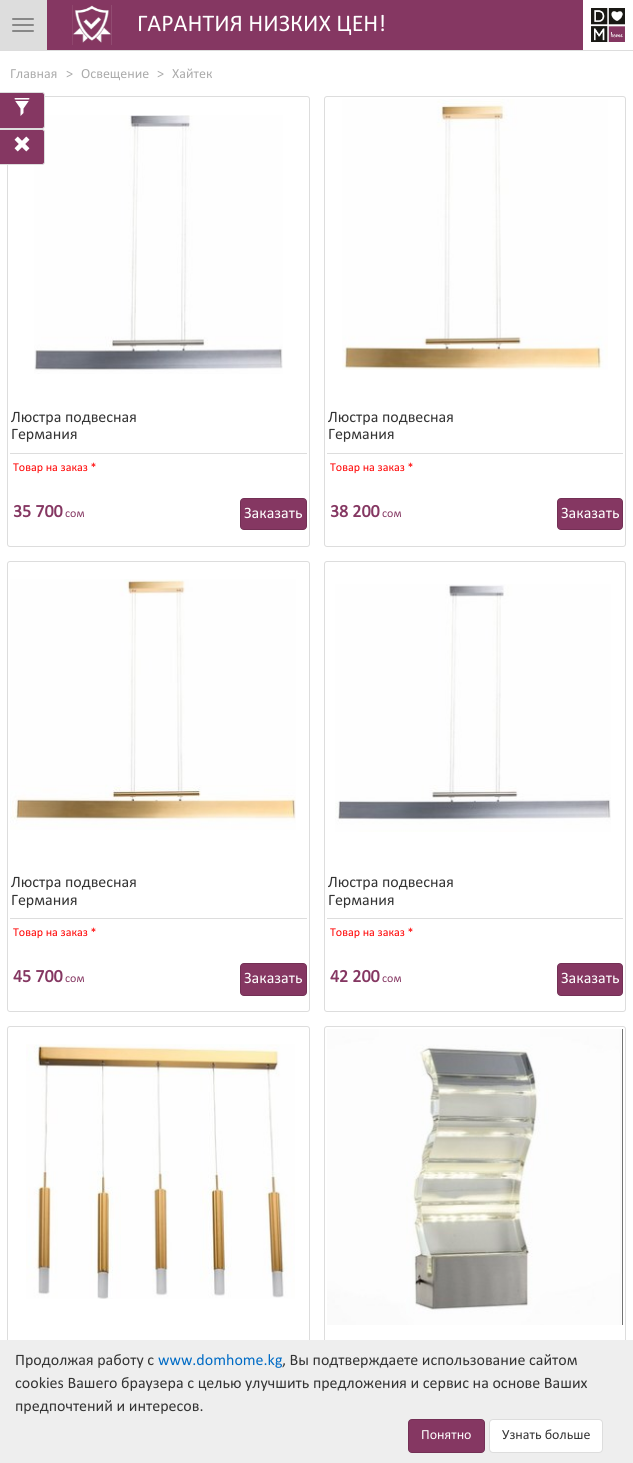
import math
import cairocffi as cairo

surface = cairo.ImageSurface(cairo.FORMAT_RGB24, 633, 1463)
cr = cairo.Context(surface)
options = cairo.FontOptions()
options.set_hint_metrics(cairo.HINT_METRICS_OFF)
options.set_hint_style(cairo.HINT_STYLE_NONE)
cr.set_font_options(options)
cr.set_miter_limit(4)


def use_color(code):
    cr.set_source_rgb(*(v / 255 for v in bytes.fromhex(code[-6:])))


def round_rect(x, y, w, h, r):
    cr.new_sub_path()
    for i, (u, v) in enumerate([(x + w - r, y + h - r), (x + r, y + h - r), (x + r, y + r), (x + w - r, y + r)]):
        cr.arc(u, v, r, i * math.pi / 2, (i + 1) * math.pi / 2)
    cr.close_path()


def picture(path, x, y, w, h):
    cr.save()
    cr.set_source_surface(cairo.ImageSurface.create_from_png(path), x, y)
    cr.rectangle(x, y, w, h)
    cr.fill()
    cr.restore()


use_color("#ffffff")
cr.paint()
use_color("#dddddd")
cr.rectangle(0, 50, 633, 1)
cr.fill()
cr.rectangle(0, 0, 47, 50)
cr.fill()
use_color("#888888")
round_rect(12, 18, 22, 2, 1)
cr.fill()
round_rect(12, 24, 22, 2, 1)
cr.fill()
round_rect(12, 30, 22, 2, 1)
cr.fill()
use_color("#853762")
cr.rectangle(47, 0, 536, 50)
cr.fill()
use_color("#ffffff")
cr.rectangle(72, 5, 40, 40)
cr.fill()
picture("img1.png", 72, 5, 40, 40)
cr.select_font_face("Calibri")
cr.set_font_size(24)
cr.move_to(137, 31)
cr.show_text("ГАРАНТИЯ НИЗКИХ ЦЕН!")
picture("img2.png", 591, 8, 34, 34)
cr.set_font_size(14)
use_color("#ababab")
cr.move_to(10, 78)
cr.show_text("Главная")
cr.move_to(66, 78)
cr.show_text(">")
cr.move_to(81, 78)
cr.show_text("Освещение")
cr.move_to(157, 78)
cr.show_text(">")
cr.move_to(172, 78)
cr.show_text("Хайтек")
round_rect(7.5, 96.5, 302, 450, 2.5)
use_color("#dddddd")
cr.set_line_width(1)
cr.stroke()
picture("img5.png", 34, 115, 249, 259)
use_color("#853762")
round_rect(-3.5, 92.5, 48, 36, 2.5)
cr.fill_preserve()
use_color("#dddddd")
cr.stroke()
picture("img3.png", 14, 98, 16, 18)
use_color("#853762")
round_rect(-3.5, 129.5, 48, 35, 2.5)
cr.fill_preserve()
use_color("#dddddd")
cr.stroke()
picture("img4.png", 14, 136, 16, 16)
cr.set_font_size(16)
use_color("#333333")
cr.move_to(11, 422)
cr.show_text("Люстра подвесная")
cr.move_to(11, 439)
cr.show_text("Германия")
use_color("#dddddd")
cr.rectangle(10, 453, 297, 1)
cr.fill()
cr.set_font_size(12)
use_color("#ff0000")
cr.move_to(13, 471)
cr.show_text("Товар на заказ *")
cr.select_font_face("Calibri", cairo.FONT_SLANT_NORMAL, cairo.FONT_WEIGHT_BOLD)
cr.set_font_size(18)
use_color("#853762")
cr.move_to(13, 517)
cr.show_text("35 700")
cr.select_font_face("Calibri")
cr.set_font_size(12)
cr.move_to(65, 517)
cr.show_text("сом")
round_rect(240.5, 498.5, 66, 31, 3.5)
cr.fill_preserve()
use_color("#733055")
cr.stroke()
cr.set_font_size(16)
use_color("#ffffff")
cr.move_to(244, 518)
cr.show_text("Заказать")
round_rect(324.5, 96.5, 301, 450, 2.5)
use_color("#dddddd")
cr.stroke()
picture("img6.png", 342, 99, 266, 271)
use_color("#333333")
cr.move_to(328, 422)
cr.show_text("Люстра подвесная")
cr.move_to(328, 439)
cr.show_text("Германия")
use_color("#dddddd")
cr.rectangle(327, 453, 296, 1)
cr.fill()
cr.set_font_size(12)
use_color("#ff0000")
cr.move_to(330, 471)
cr.show_text("Товар на заказ *")
cr.select_font_face("Calibri", cairo.FONT_SLANT_NORMAL, cairo.FONT_WEIGHT_BOLD)
cr.set_font_size(18)
use_color("#853762")
cr.move_to(330, 517)
cr.show_text("38 200")
cr.select_font_face("Calibri")
cr.set_font_size(12)
cr.move_to(382, 517)
cr.show_text("сом")
round_rect(557.5, 498.5, 65, 31, 3.5)
cr.fill_preserve()
use_color("#733055")
cr.stroke()
cr.set_font_size(16)
use_color("#ffffff")
cr.move_to(561, 518)
cr.show_text("Заказать")
round_rect(7.5, 561.5, 302, 450, 2.5)
use_color("#dddddd")
cr.stroke()
picture("img7.png", 10, 579, 286, 251)
use_color("#333333")
cr.move_to(11, 887)
cr.show_text("Люстра подвесная")
cr.move_to(11, 905)
cr.show_text("Германия")
use_color("#dddddd")
cr.rectangle(10, 918, 297, 1)
cr.fill()
cr.set_font_size(12)
use_color("#ff0000")
cr.move_to(13, 936)
cr.show_text("Товар на заказ *")
cr.select_font_face("Calibri", cairo.FONT_SLANT_NORMAL, cairo.FONT_WEIGHT_BOLD)
cr.set_font_size(18)
use_color("#853762")
cr.move_to(13, 982)
cr.show_text("45 700")
cr.select_font_face("Calibri")
cr.set_font_size(12)
cr.move_to(65, 982)
cr.show_text("сом")
round_rect(240.5, 963.5, 66, 32, 3.5)
cr.fill_preserve()
use_color("#733055")
cr.stroke()
cr.set_font_size(16)
use_color("#ffffff")
cr.move_to(244, 983)
cr.show_text("Заказать")
round_rect(324.5, 561.5, 301, 450, 2.5)
use_color("#dddddd")
cr.stroke()
picture("img8.png", 335, 584, 276, 248)
use_color("#333333")
cr.move_to(328, 887)
cr.show_text("Люстра подвесная")
cr.move_to(328, 905)
cr.show_text("Германия")
use_color("#dddddd")
cr.rectangle(327, 918, 296, 1)
cr.fill()
cr.set_font_size(12)
use_color("#ff0000")
cr.move_to(330, 936)
cr.show_text("Товар на заказ *")
cr.select_font_face("Calibri", cairo.FONT_SLANT_NORMAL, cairo.FONT_WEIGHT_BOLD)
cr.set_font_size(18)
use_color("#853762")
cr.move_to(330, 982)
cr.show_text("42 200")
cr.select_font_face("Calibri")
cr.set_font_size(12)
cr.move_to(382, 982)
cr.show_text("сом")
round_rect(557.5, 963.5, 65, 32, 3.5)
cr.fill_preserve()
use_color("#733055")
cr.stroke()
cr.set_font_size(16)
use_color("#ffffff")
cr.move_to(561, 983)
cr.show_text("Заказать")
round_rect(7.5, 1026.5, 302, 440, 2.5)
use_color("#dddddd")
cr.stroke()
picture("img9.png", 26, 1044, 269, 255)
round_rect(324.5, 1026.5, 301, 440, 2.5)
cr.stroke()
picture("img10.png", 327, 1029, 296, 296)
use_color("#eeeeee")
cr.rectangle(0, 1340, 633, 123)
cr.fill()
use_color("#333333")
cr.move_to(15, 1365)
cr.show_text("Продолжая работу с")
use_color("#006bc5")
cr.move_to(158, 1365)
cr.show_text("www.domhome.kg")
use_color("#333333")
cr.move_to(282, 1365)
cr.show_text(", Вы подтверждаете использование сайтом")
cr.move_to(15, 1388)
cr.show_text("cookies Вашего браузера с целью улучшить предложения и сервис на основе Ваших")
cr.move_to(15, 1411)
cr.show_text("предпочтений и интересов.")
use_color("#853762")
round_rect(408.5, 1419.5, 76, 33, 3.5)
cr.fill_preserve()
use_color("#733055")
cr.stroke()
cr.set_font_size(14)
use_color("#ffffff")
cr.move_to(421, 1439)
cr.show_text("Понятно")
round_rect(489.5, 1419.5, 113, 33, 3.5)
cr.fill_preserve()
use_color("#dddddd")
cr.stroke()
use_color("#333333")
cr.move_to(502, 1439)
cr.show_text("Узнать больше")
surface.write_to_png("result.png")
